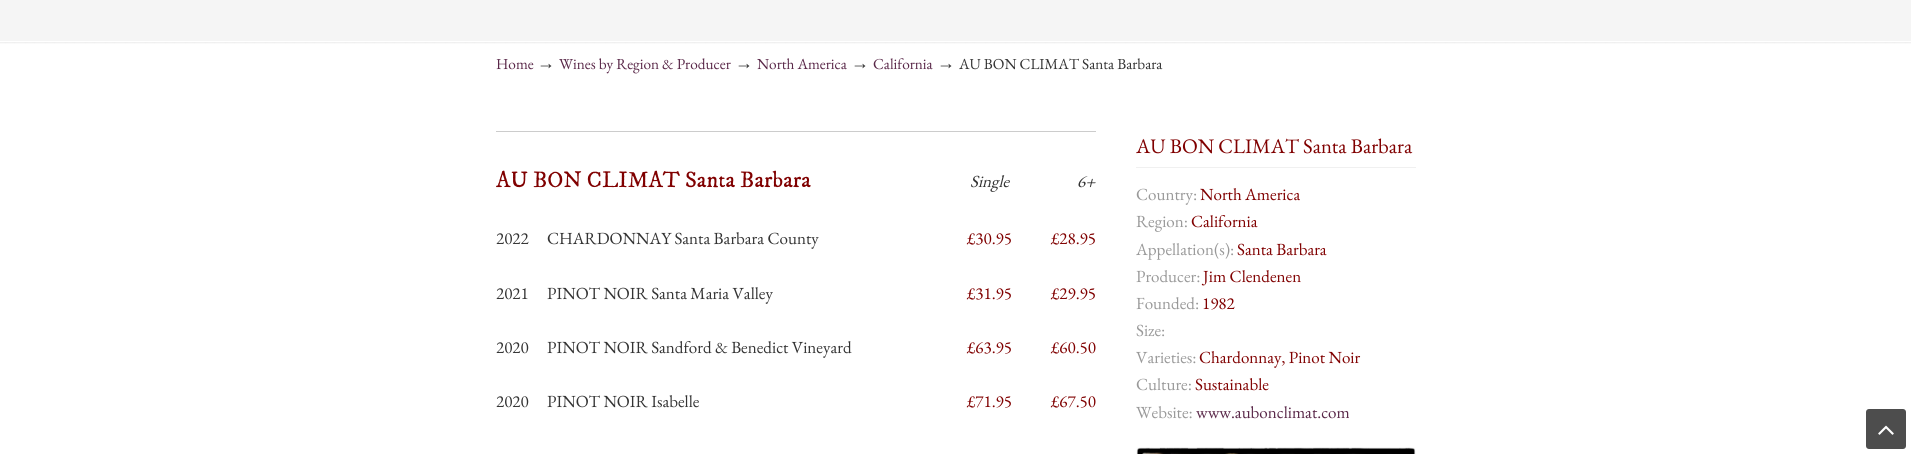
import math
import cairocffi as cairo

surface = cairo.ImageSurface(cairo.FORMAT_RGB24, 1911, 454)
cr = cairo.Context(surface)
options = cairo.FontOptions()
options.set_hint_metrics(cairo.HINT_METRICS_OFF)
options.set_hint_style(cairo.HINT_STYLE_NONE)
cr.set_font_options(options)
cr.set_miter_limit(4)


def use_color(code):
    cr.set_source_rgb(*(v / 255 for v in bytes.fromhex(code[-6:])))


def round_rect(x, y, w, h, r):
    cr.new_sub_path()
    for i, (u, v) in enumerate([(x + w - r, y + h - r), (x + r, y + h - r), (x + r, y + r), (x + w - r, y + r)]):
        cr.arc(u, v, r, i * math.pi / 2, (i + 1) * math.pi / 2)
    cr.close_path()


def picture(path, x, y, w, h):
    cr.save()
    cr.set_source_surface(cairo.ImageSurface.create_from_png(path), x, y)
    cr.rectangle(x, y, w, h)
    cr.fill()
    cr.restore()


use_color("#f5f5f5")
cr.paint()
use_color("#ffffff")
cr.rectangle(0, 41, 1911, 413)
cr.fill()
picture("img1.png", 0, 42, 1911, 2)
cr.select_font_face("EB Garamond")
cr.set_font_size(15.25)
use_color("#592748")
cr.move_to(496, 69)
cr.show_text("Home")
cr.select_font_face("Liberation Serif")
cr.set_font_size(18)
use_color("#333333")
cr.move_to(537, 69)
cr.show_text("→")
cr.select_font_face("EB Garamond")
cr.set_font_size(15.25)
use_color("#592748")
cr.move_to(559, 69)
cr.show_text("Wines by Region & Producer")
cr.select_font_face("Liberation Serif")
cr.set_font_size(18)
use_color("#333333")
cr.move_to(735, 69)
cr.show_text("→")
cr.select_font_face("EB Garamond")
cr.set_font_size(15.25)
use_color("#592748")
cr.move_to(757, 69)
cr.show_text("North America")
cr.select_font_face("Liberation Serif")
cr.set_font_size(18)
use_color("#333333")
cr.move_to(851, 69)
cr.show_text("→")
cr.select_font_face("EB Garamond")
cr.set_font_size(15.25)
use_color("#592748")
cr.move_to(873, 69)
cr.show_text("California")
cr.select_font_face("Liberation Serif")
cr.set_font_size(18)
use_color("#333333")
cr.move_to(937, 69)
cr.show_text("→")
cr.select_font_face("EB Garamond")
cr.set_font_size(15.25)
cr.move_to(959, 69)
cr.show_text("AU BON CLIMAT Santa Barbara")
use_color("#cccccc")
cr.rectangle(496, 131, 600, 1)
cr.fill()
cr.select_font_face("IM FELL DW Pica")
cr.set_font_size(22.7)
use_color("#800000")
cr.move_to(496, 187)
cr.show_text("AU BON CLIMAT Santa Barbara")
cr.select_font_face("EB Garamond", cairo.FONT_SLANT_ITALIC)
cr.set_font_size(17)
use_color("#333333")
cr.move_to(970, 187)
cr.show_text("Single")
cr.move_to(1077, 187)
cr.show_text("6+")
cr.select_font_face("EB Garamond")
cr.move_to(496, 244)
cr.show_text("2022")
cr.move_to(547, 244)
cr.show_text("CHARDONNAY Santa Barbara County")
use_color("#800000")
cr.move_to(967, 244)
cr.show_text("£30.95")
cr.move_to(1051, 244)
cr.show_text("£28.95")
use_color("#333333")
cr.move_to(496, 299)
cr.show_text("2021")
cr.move_to(547, 299)
cr.show_text("PINOT NOIR Santa Maria Valley")
use_color("#800000")
cr.move_to(967, 299)
cr.show_text("£31.95")
cr.move_to(1051, 299)
cr.show_text("£29.95")
use_color("#333333")
cr.move_to(496, 353)
cr.show_text("2020")
cr.move_to(547, 353)
cr.show_text("PINOT NOIR Sandford & Benedict Vineyard")
use_color("#800000")
cr.move_to(967, 353)
cr.show_text("£63.95")
cr.move_to(1051, 353)
cr.show_text("£60.50")
use_color("#333333")
cr.move_to(496, 407)
cr.show_text("2020")
cr.move_to(547, 407)
cr.show_text("PINOT NOIR Isabelle")
use_color("#800000")
cr.move_to(967, 407)
cr.show_text("£71.95")
cr.move_to(1051, 407)
cr.show_text("£67.50")
use_color("#f0f0f0")
cr.rectangle(1136, 167, 280, 1)
cr.fill()
cr.set_font_size(20.7)
use_color("#800000")
cr.move_to(1136, 153)
cr.show_text("AU BON CLIMAT Santa Barbara")
cr.set_font_size(17)
use_color("#999999")
cr.move_to(1136, 200)
cr.show_text("Country:")
use_color("#800000")
cr.move_to(1200, 200)
cr.show_text("North America")
use_color("#999999")
cr.move_to(1136, 227)
cr.show_text("Region:")
use_color("#800000")
cr.move_to(1191, 227)
cr.show_text("California")
use_color("#999999")
cr.move_to(1136, 255)
cr.show_text("Appellation(s):")
use_color("#800000")
cr.move_to(1237, 255)
cr.show_text("Santa Barbara")
use_color("#999999")
cr.move_to(1136, 282)
cr.show_text("Producer:")
use_color("#800000")
cr.move_to(1203, 282)
cr.show_text("Jim Clendenen")
use_color("#999999")
cr.move_to(1136, 309)
cr.show_text("Founded:")
use_color("#800000")
cr.move_to(1202, 309)
cr.show_text("1982")
use_color("#999999")
cr.move_to(1136, 336)
cr.show_text("Size:")
cr.move_to(1136, 363)
cr.show_text("Varieties:")
use_color("#800000")
cr.move_to(1199, 363)
cr.show_text("Chardonnay, Pinot Noir")
use_color("#999999")
cr.move_to(1136, 390)
cr.show_text("Culture:")
use_color("#800000")
cr.move_to(1195, 390)
cr.show_text("Sustainable")
use_color("#999999")
cr.move_to(1136, 418)
cr.show_text("Website:")
use_color("#592748")
cr.move_to(1196, 418)
cr.show_text("www.aubonclimat.com")
picture("img2.png", 1136, 447, 280, 7)
use_color("#4d4d4d")
round_rect(1866, 409, 40, 40, 3)
cr.fill()
picture("img3.png", 1878, 425, 16, 10)
surface.write_to_png("result.png")
